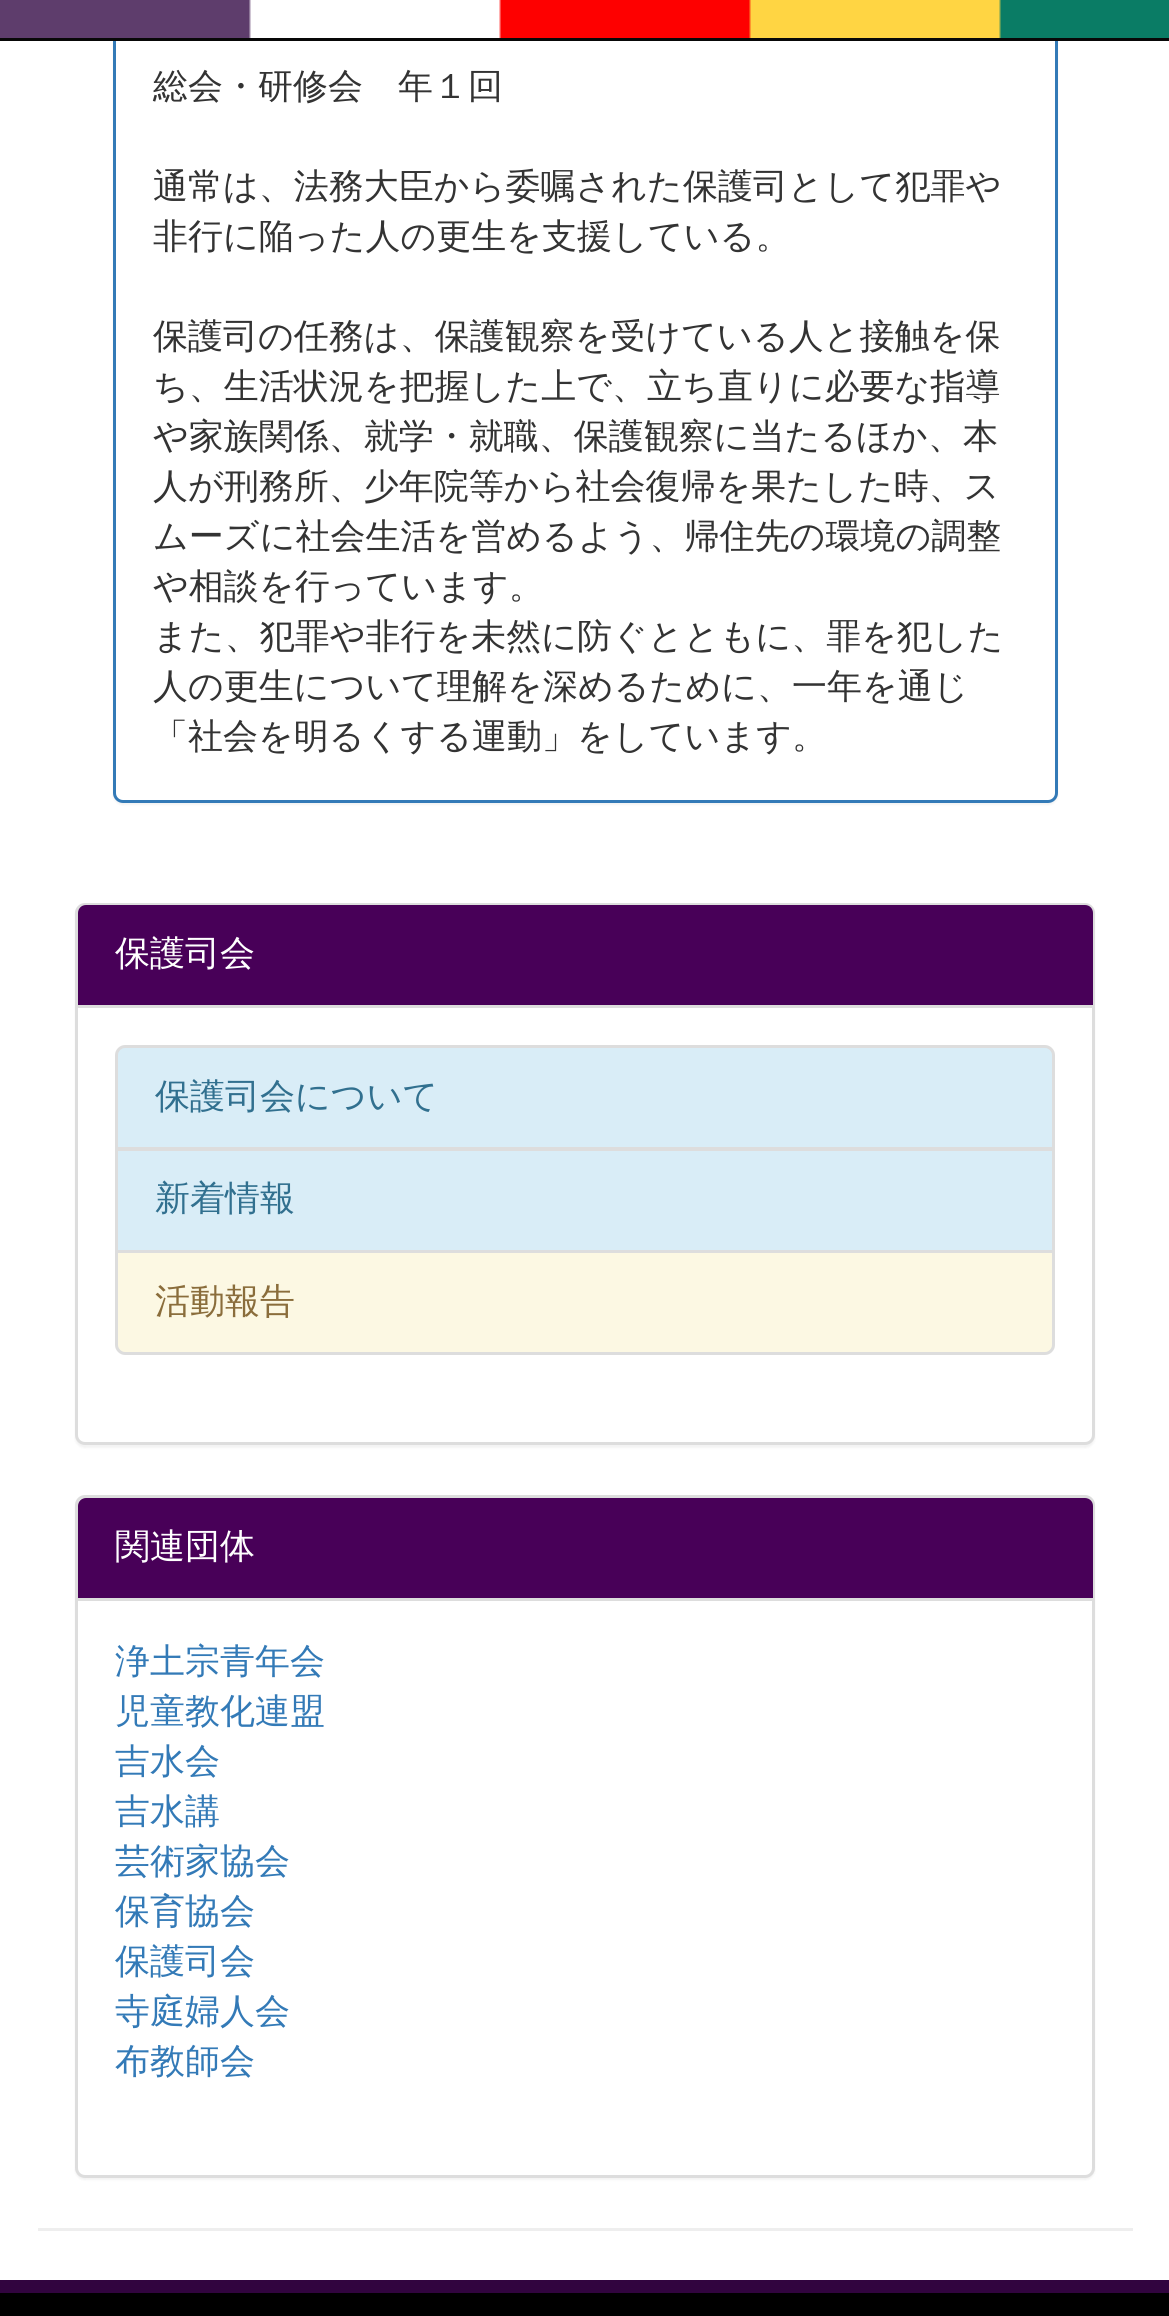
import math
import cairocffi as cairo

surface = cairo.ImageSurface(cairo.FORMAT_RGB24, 1169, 2316)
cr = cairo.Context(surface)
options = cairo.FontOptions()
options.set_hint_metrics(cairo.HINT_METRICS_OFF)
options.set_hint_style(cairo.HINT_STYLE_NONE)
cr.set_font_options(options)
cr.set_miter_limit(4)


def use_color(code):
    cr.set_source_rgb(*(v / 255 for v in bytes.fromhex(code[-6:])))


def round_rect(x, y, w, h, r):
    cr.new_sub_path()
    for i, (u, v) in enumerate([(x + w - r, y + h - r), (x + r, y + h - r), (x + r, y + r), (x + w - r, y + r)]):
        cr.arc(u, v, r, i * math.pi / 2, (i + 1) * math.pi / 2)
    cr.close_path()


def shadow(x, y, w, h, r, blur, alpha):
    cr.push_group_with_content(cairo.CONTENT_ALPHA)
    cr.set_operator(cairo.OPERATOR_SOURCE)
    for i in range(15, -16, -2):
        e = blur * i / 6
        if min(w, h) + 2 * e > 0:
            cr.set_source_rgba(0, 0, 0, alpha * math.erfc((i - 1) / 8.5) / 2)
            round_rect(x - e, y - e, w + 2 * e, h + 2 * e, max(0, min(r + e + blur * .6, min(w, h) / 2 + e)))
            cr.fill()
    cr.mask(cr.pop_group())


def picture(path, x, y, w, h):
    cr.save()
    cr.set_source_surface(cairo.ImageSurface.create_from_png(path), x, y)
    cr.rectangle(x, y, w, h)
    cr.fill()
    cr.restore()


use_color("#ffffff")
cr.paint()
use_color("#000000")
shadow(113, -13, 945, 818, 10, 1, 0.05)
use_color("#ffffff")
round_rect(114.5, -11.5, 942, 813, 8.5)
cr.fill_preserve()
use_color("#337ab7")
cr.set_line_width(3)
cr.stroke()
picture("img1.png", 0, 0, 1169, 38)
use_color("#080808")
cr.rectangle(0, 38, 1169, 3)
cr.fill()
cr.select_font_face("WenQuanYi Zen Hei Medium")
cr.set_font_size(35)
use_color("#333333")
cr.move_to(153, 98)
cr.show_text("総会・研修会　年１回")
cr.move_to(153, 198)
cr.show_text("通常は、法務大臣から委嘱された保護司として犯罪や")
cr.move_to(153, 248)
cr.show_text("非行に陥った人の更生を支援している。")
cr.move_to(153, 348)
cr.show_text("保護司の任務は、保護観察を受けている人と接触を保")
cr.move_to(153, 398)
cr.show_text("ち、生活状況を把握した上で、立ち直りに必要な指導")
cr.move_to(153, 448)
cr.show_text("や家族関係、就学・就職、保護観察に当たるほか、本")
cr.move_to(153, 498)
cr.show_text("人が刑務所、少年院等から社会復帰を果たした時、ス")
cr.move_to(153, 548)
cr.show_text("ムーズに社会生活を営めるよう、帰住先の環境の調整")
cr.move_to(153, 598)
cr.show_text("や相談を行っています。")
cr.move_to(153, 648)
cr.show_text("また、犯罪や非行を未然に防ぐとともに、罪を犯した")
cr.move_to(153, 698)
cr.show_text("人の更生について理解を深めるために、一年を通じ")
cr.move_to(153, 748)
cr.show_text("「社会を明るくする運動」をしています。")
use_color("#000000")
shadow(75, 905, 1020, 543, 10, 1, 0.05)
use_color("#ffffff")
round_rect(76.5, 904.5, 1017, 539, 8.5)
cr.fill_preserve()
use_color("#dddddd")
cr.stroke()
use_color("#480058")
cr.new_path()
cr.move_to(86, 905)
cr.line_to(1085, 905)
cr.curve_to(1089.5, 905, 1093, 908.5, 1093, 913)
cr.line_to(1093, 1008)
cr.line_to(78, 1008)
cr.line_to(78, 913)
cr.curve_to(78, 908.5, 81.5, 905, 86, 905)
cr.close_path()
cr.fill()
use_color("#dddddd")
cr.rectangle(78, 1005, 1015, 3)
cr.fill()
use_color("#ffffff")
cr.move_to(115, 965)
cr.show_text("保護司会")
use_color("#d9edf7")
cr.new_path()
cr.move_to(125, 1046.5)
cr.line_to(1045, 1046.5)
cr.curve_to(1049.5, 1046.5, 1053.5, 1050.5, 1053.5, 1055)
cr.line_to(1053.5, 1148.5)
cr.line_to(116.5, 1148.5)
cr.line_to(116.5, 1055)
cr.curve_to(116.5, 1050.5, 120.5, 1046.5, 125, 1046.5)
cr.close_path()
cr.fill_preserve()
use_color("#dddddd")
cr.stroke()
use_color("#31708f")
cr.move_to(155, 1108)
cr.show_text("保護司会について")
use_color("#d9edf7")
cr.rectangle(116.5, 1149.5, 937, 102)
cr.fill_preserve()
use_color("#dddddd")
cr.stroke()
use_color("#31708f")
cr.move_to(155, 1210)
cr.show_text("新着情報")
use_color("#fcf8e3")
cr.new_path()
cr.move_to(116.5, 1251.5)
cr.line_to(1053.5, 1251.5)
cr.line_to(1053.5, 1345)
cr.curve_to(1053.5, 1349.5, 1049.5, 1353.5, 1045, 1353.5)
cr.line_to(125, 1353.5)
cr.curve_to(120.5, 1353.5, 116.5, 1349.5, 116.5, 1345)
cr.close_path()
cr.fill_preserve()
use_color("#dddddd")
cr.stroke()
use_color("#8a6d3b")
cr.move_to(155, 1313)
cr.show_text("活動報告")
use_color("#000000")
shadow(75, 1498, 1020, 682, 10, 1, 0.05)
use_color("#ffffff")
round_rect(76.5, 1496.5, 1017, 680, 8.5)
cr.fill_preserve()
use_color("#dddddd")
cr.stroke()
use_color("#480058")
cr.new_path()
cr.move_to(86, 1498)
cr.line_to(1085, 1498)
cr.curve_to(1089.5, 1498, 1093, 1501.5, 1093, 1506)
cr.line_to(1093, 1600)
cr.line_to(78, 1600)
cr.line_to(78, 1506)
cr.curve_to(78, 1501.5, 81.5, 1498, 86, 1498)
cr.close_path()
cr.fill()
use_color("#dddddd")
cr.rectangle(78, 1598, 1015, 3)
cr.fill()
use_color("#ffffff")
cr.move_to(115, 1558)
cr.show_text("関連団体")
use_color("#337ab7")
cr.move_to(115, 1673)
cr.show_text("浄土宗青年会")
cr.move_to(115, 1723)
cr.show_text("児童教化連盟")
cr.move_to(115, 1773)
cr.show_text("吉水会")
cr.move_to(115, 1823)
cr.show_text("吉水講")
cr.move_to(115, 1873)
cr.show_text("芸術家協会")
cr.move_to(115, 1923)
cr.show_text("保育協会")
cr.move_to(115, 1973)
cr.show_text("保護司会")
cr.move_to(115, 2023)
cr.show_text("寺庭婦人会")
cr.move_to(115, 2073)
cr.show_text("布教師会")
use_color("#eeeeee")
cr.rectangle(38, 2228, 1095, 3)
cr.fill()
use_color("#000000")
cr.rectangle(0, 2293, 1169, 23)
cr.fill()
use_color("#31043f")
cr.rectangle(0, 2280, 1169, 13)
cr.fill()
surface.write_to_png("result.png")
